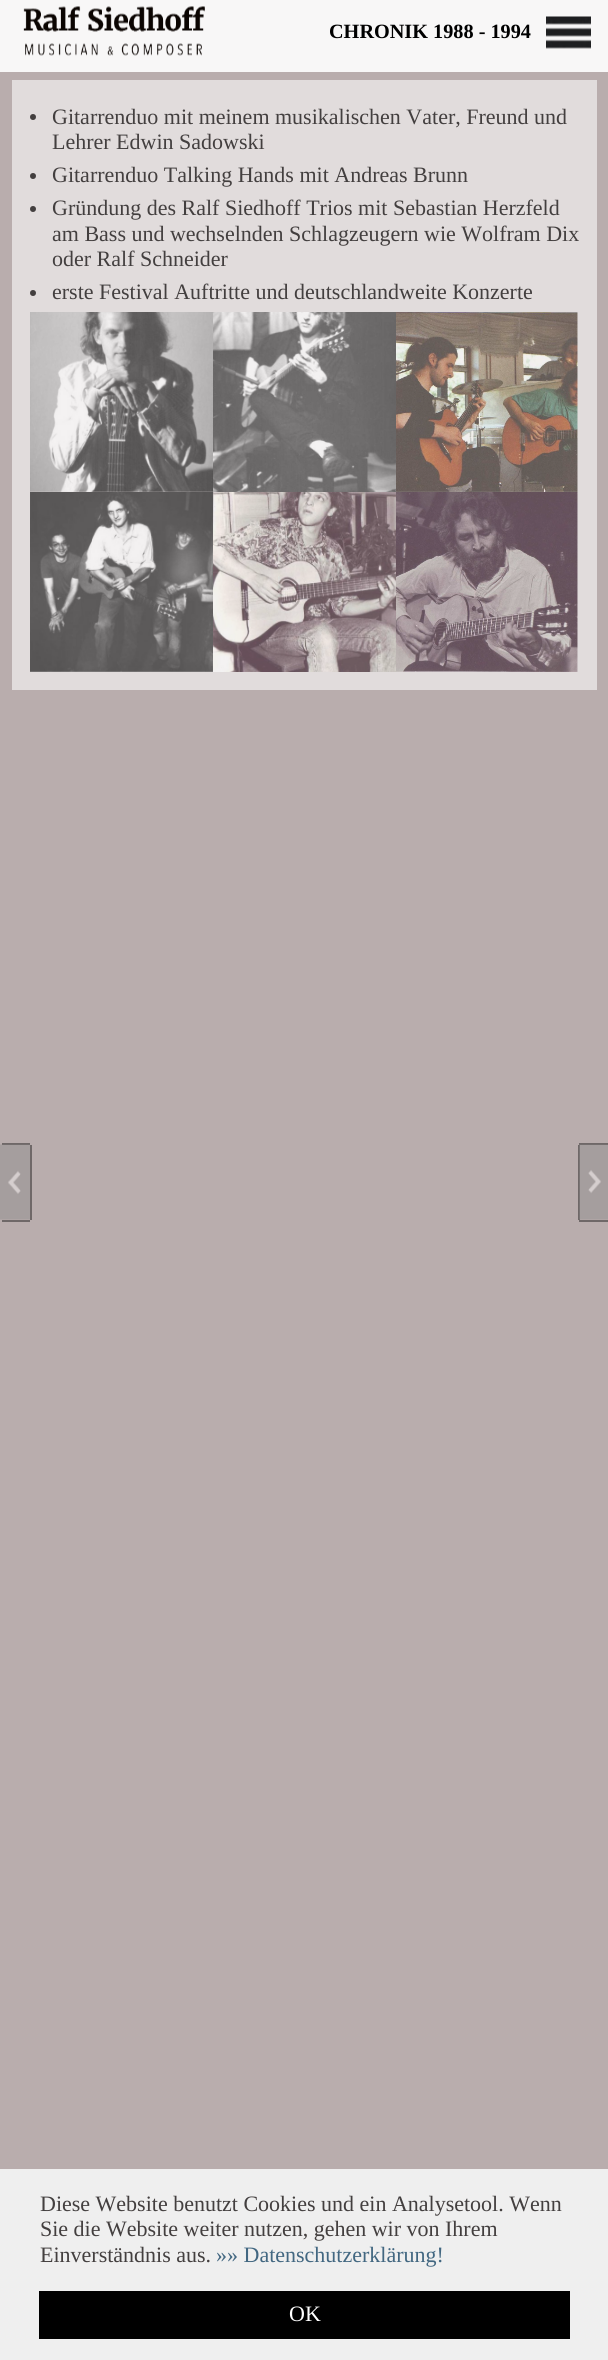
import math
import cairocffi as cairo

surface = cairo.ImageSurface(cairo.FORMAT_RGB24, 608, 2360)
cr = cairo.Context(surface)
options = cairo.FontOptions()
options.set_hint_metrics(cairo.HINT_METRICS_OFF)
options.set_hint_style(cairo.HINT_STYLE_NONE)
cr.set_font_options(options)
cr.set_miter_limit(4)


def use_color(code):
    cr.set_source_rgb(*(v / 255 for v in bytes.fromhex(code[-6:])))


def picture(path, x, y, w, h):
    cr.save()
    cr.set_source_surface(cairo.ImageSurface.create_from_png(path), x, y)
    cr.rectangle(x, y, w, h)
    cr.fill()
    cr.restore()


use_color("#b9adad")
cr.paint()
use_color("#f8f7f7")
cr.rectangle(0, 0, 608, 72)
cr.fill()
picture("img1.png", 23, 6, 182, 50)
cr.select_font_face("Liberation Serif", cairo.FONT_SLANT_NORMAL, cairo.FONT_WEIGHT_BOLD)
cr.set_font_size(20.25)
use_color("#000000")
cr.move_to(329, 38)
cr.show_text("CHRONIK 1988 - 1994")
picture("img2.png", 546, 16, 45, 33)
use_color("#e1dcdc")
cr.rectangle(12, 80, 585, 610)
cr.fill()
use_color("#433f3f")
cr.arc(33, 117, 3, 0, 2 * math.pi)
cr.fill()
cr.select_font_face("Liberation Serif")
cr.set_font_size(22)
cr.move_to(52, 124)
cr.show_text("Gitarrenduo mit meinem musikalischen Vater, Freund und")
cr.move_to(52, 149)
cr.show_text("Lehrer Edwin Sadowski")
cr.new_path()
cr.arc(33, 176, 3, 0, 2 * math.pi)
cr.fill()
cr.move_to(52, 182)
cr.show_text("Gitarrenduo Talking Hands mit Andreas Brunn")
cr.new_path()
cr.arc(33, 209, 3, 0, 2 * math.pi)
cr.fill()
cr.move_to(52, 215)
cr.show_text("Gründung des Ralf Siedhoff Trios mit Sebastian Herzfeld")
cr.move_to(52, 241)
cr.show_text("am Bass und wechselnden Schlagzeugern wie Wolfram Dix")
cr.move_to(52, 266)
cr.show_text("oder Ralf Schneider")
cr.new_path()
cr.arc(33, 293, 3, 0, 2 * math.pi)
cr.fill()
cr.move_to(52, 299)
cr.show_text("erste Festival Auftritte und deutschlandweite Konzerte")
picture("img3.png", 30, 312, 183, 180)
picture("img4.png", 213, 312, 183, 180)
picture("img5.png", 396, 312, 182, 180)
picture("img6.png", 30, 492, 183, 180)
picture("img7.png", 213, 492, 183, 180)
picture("img8.png", 396, 492, 182, 180)
use_color("#6f6868")
cr.rectangle(2, 1143, 28, 2)
cr.fill()
cr.rectangle(30, 1145, 2, 75)
cr.fill()
cr.rectangle(2, 1220, 28, 2)
cr.fill()
picture("img9.png", 0, 1144, 30, 76)
cr.rectangle(579, 1143, 29, 2)
cr.fill()
cr.rectangle(579, 1220, 29, 2)
cr.fill()
cr.rectangle(578, 1145, 2, 75)
cr.fill()
picture("img10.png", 579, 1144, 29, 76)
use_color("#efefef")
cr.rectangle(0, 2169, 608, 191)
cr.fill()
use_color("#433f3f")
cr.move_to(40, 2211)
cr.show_text("Diese Website benutzt Cookies und ein Analysetool. Wenn")
cr.move_to(40, 2236)
cr.show_text("Sie die Website weiter nutzen, gehen wir von Ihrem")
cr.move_to(40, 2262)
cr.show_text("Einverständnis aus.")
use_color("#426781")
cr.move_to(216, 2262)
cr.show_text("»» Datenschutzerklärung!")
use_color("#000000")
cr.rectangle(39, 2291, 531, 48)
cr.fill()
use_color("#ffffff")
cr.move_to(289, 2321)
cr.show_text("OK")
surface.write_to_png("result.png")
